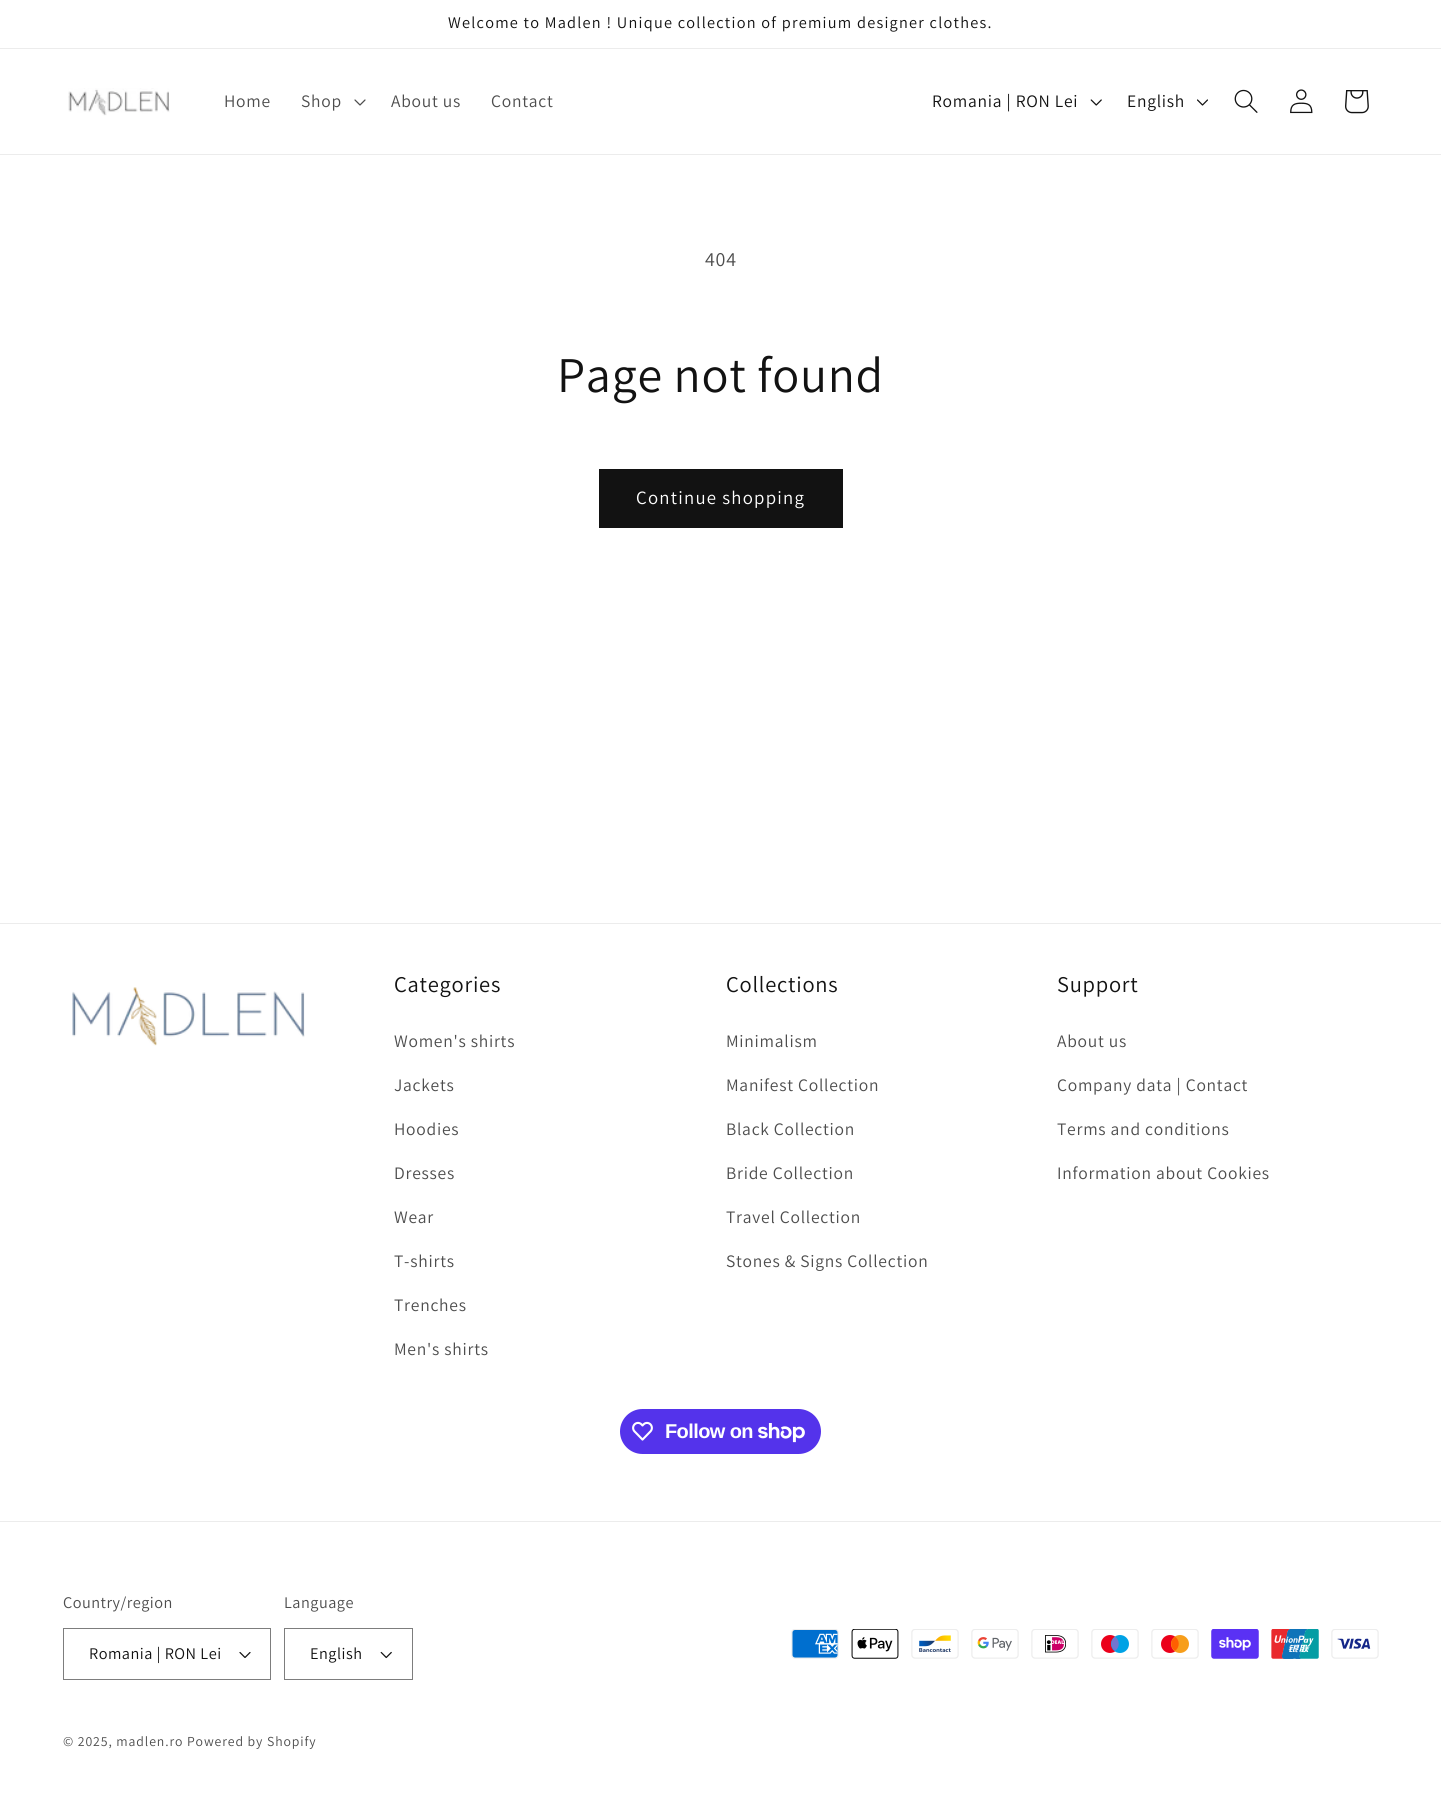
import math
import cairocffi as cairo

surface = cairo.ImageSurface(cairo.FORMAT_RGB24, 1441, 1798)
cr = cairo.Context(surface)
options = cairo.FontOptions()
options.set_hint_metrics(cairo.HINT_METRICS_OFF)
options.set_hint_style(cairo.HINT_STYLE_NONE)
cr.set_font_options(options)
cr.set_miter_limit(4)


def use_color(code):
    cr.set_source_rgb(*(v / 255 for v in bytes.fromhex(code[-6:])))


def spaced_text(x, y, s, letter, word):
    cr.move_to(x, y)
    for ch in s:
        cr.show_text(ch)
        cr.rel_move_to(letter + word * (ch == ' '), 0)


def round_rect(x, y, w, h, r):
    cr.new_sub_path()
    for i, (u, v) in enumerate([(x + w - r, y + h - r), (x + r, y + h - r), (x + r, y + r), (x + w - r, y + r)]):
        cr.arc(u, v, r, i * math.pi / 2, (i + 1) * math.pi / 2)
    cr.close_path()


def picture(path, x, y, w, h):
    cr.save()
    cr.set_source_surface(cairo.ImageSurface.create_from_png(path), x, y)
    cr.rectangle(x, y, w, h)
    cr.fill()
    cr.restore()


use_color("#ffffff")
cr.paint()
use_color("#ececec")
cr.rectangle(0, 48, 1441, 1)
cr.fill()
cr.select_font_face("Assistant")
cr.set_font_size(16.25)
use_color("#121212")
spaced_text(448, 28, "Welcome to Madlen ! Unique collection of premium designer clothes.", 1.25, 0)
use_color("#ececec")
cr.rectangle(0, 154, 1441, 1)
cr.fill()
picture("img1.png", 68, 88, 102, 28)
cr.set_font_size(17.5)
use_color("#4d4d4d")
spaced_text(224, 107, "Home", 0.75, 0)
spaced_text(301, 107, "Shop", 0.75, 0)
picture("img2.png", 354, 99, 12, 7)
spaced_text(391, 107, "About us", 0.75, 0)
spaced_text(491, 107, "Contact", 0.75, 0)
use_color("#121212")
spaced_text(932, 107, "Romania | RON Lei", 0.75, 0)
picture("img3.png", 1090, 99, 12, 7)
spaced_text(1127, 107, "English", 0.75, 0)
picture("img4.png", 1197, 99, 11, 7)
picture("img5.png", 1234, 89, 24, 24)
picture("img6.png", 1290, 89, 23, 25)
picture("img7.png", 1345, 90, 24, 24)
cr.set_font_size(20)
use_color("#4d4d4d")
spaced_text(705, 266, "404", 0.75, 0)
cr.set_font_size(50)
use_color("#121212")
spaced_text(557, 392, "Page not found", 0.75, 0)
cr.rectangle(599, 469, 244, 59)
cr.fill()
cr.set_font_size(18.75)
use_color("#ffffff")
spaced_text(636, 504, "Continue shopping", 1.25, 0)
use_color("#ececec")
cr.rectangle(0, 923, 1441, 1)
cr.fill()
picture("img8.png", 72, 987, 233, 59)
cr.set_font_size(22.5)
use_color("#121212")
spaced_text(394, 992, "Categories", 0.75, 0)
cr.set_font_size(17.5)
use_color("#4d4d4d")
spaced_text(394, 1047, "Women's shirts", 0.75, 0)
spaced_text(394, 1091, "Jackets", 0.75, 0)
spaced_text(394, 1135, "Hoodies", 0.75, 0)
spaced_text(394, 1179, "Dresses", 0.75, 0)
spaced_text(394, 1223, "Wear", 0.75, 0)
spaced_text(394, 1267, "T-shirts", 0.75, 0)
spaced_text(394, 1311, "Trenches", 0.75, 0)
spaced_text(394, 1355, "Men's shirts", 0.75, 0)
cr.set_font_size(22.5)
use_color("#121212")
spaced_text(726, 992, "Collections", 0.75, 0)
cr.set_font_size(17.5)
use_color("#4d4d4d")
spaced_text(726, 1047, "Minimalism", 0.75, 0)
spaced_text(726, 1091, "Manifest Collection", 0.75, 0)
spaced_text(726, 1135, "Black Collection", 0.75, 0)
spaced_text(726, 1179, "Bride Collection", 0.75, 0)
spaced_text(726, 1223, "Travel Collection", 0.75, 0)
spaced_text(726, 1267, "Stones & Signs Collection", 0.75, 0)
cr.set_font_size(22.5)
use_color("#121212")
spaced_text(1057, 992, "Support", 0.75, 0)
cr.set_font_size(17.5)
use_color("#4d4d4d")
spaced_text(1057, 1047, "About us", 0.75, 0)
spaced_text(1057, 1091, "Company data | Contact", 0.75, 0)
spaced_text(1057, 1135, "Terms and conditions", 0.75, 0)
spaced_text(1057, 1179, "Information about Cookies", 0.75, 0)
use_color("#5433eb")
round_rect(620, 1409, 201, 45, 22.5)
cr.fill()
picture("img9.png", 632, 1421, 21, 20)
cr.select_font_face("Liberation Sans", cairo.FONT_SLANT_NORMAL, cairo.FONT_WEIGHT_BOLD)
cr.set_font_size(20)
use_color("#ffffff")
spaced_text(665, 1438, "Follow on", -0.6, 0)
picture("img10.png", 758, 1423, 47, 20)
use_color("#ececec")
cr.rectangle(0, 1521, 1441, 1)
cr.fill()
cr.select_font_face("Assistant")
cr.set_font_size(16.25)
use_color("#4d4d4d")
spaced_text(63, 1608, "Country/region", 0.5, 0)
picture("img11.png", 239, 1652, 12, 6)
cr.rectangle(63.5, 1628.5, 207, 51)
use_color("#7d7d7d")
cr.set_line_width(1)
cr.stroke()
use_color("#121212")
spaced_text(89, 1659, "Romania | RON Lei", 0.5, 0)
use_color("#4d4d4d")
spaced_text(284, 1608, "Language", 0.5, 0)
picture("img12.png", 380, 1651, 12, 8)
cr.rectangle(284.5, 1628.5, 128, 51)
use_color("#7d7d7d")
cr.stroke()
use_color("#121212")
spaced_text(310, 1659, "English", 0.5, 0)
picture("img13.png", 791, 1629, 48, 30)
picture("img14.png", 851, 1629, 48, 30)
picture("img15.png", 911, 1629, 48, 30)
picture("img16.png", 971, 1629, 48, 30)
picture("img17.png", 1031, 1629, 48, 30)
picture("img18.png", 1091, 1629, 48, 30)
picture("img19.png", 1151, 1629, 48, 30)
picture("img20.png", 1211, 1629, 48, 30)
picture("img21.png", 1271, 1629, 48, 30)
picture("img22.png", 1331, 1629, 48, 30)
cr.set_font_size(13.75)
use_color("#4d4d4d")
spaced_text(63, 1746, "© 2025, madlen.ro Powered by Shopify", 0.9, 0)
surface.write_to_png("result.png")
